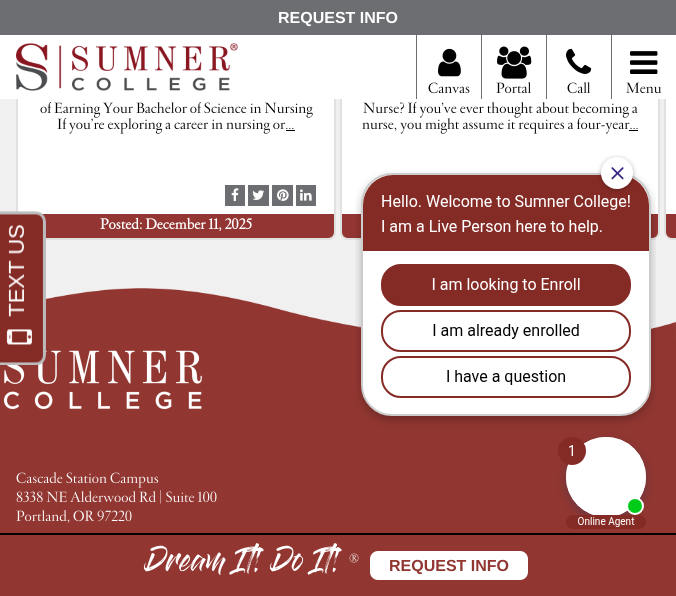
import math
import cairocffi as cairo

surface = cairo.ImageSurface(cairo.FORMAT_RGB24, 676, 596)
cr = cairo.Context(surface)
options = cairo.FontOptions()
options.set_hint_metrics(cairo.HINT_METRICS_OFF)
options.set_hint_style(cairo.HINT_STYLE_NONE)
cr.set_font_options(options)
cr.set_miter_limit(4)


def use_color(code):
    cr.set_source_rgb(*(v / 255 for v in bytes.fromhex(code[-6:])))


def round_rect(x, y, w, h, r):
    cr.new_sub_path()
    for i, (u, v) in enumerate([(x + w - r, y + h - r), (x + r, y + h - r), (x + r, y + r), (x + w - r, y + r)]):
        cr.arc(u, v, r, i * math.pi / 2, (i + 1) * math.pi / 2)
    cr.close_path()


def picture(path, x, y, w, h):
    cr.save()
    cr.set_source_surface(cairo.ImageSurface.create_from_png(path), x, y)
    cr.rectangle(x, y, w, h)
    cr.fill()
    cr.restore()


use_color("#f0f0f0")
cr.paint()
use_color("#ffffff")
round_rect(17, -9, 318, 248, 7)
cr.fill_preserve()
use_color("#e0e0e0")
cr.stroke()
use_color("#ffffff")
round_rect(341, -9, 318, 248, 7)
cr.fill_preserve()
use_color("#e0e0e0")
cr.stroke()
use_color("#ffffff")
cr.new_path()
cr.move_to(672, -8)
cr.line_to(676, -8)
cr.line_to(676, 240)
cr.line_to(672, 240)
cr.curve_to(667.5, 240, 664, 236.5, 664, 232)
cr.line_to(664, 0)
cr.curve_to(664, -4.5, 667.5, -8, 672, -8)
cr.close_path()
cr.fill()
round_rect(665, -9, 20, 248, 7)
use_color("#e0e0e0")
cr.stroke()
use_color("#6d6e71")
cr.rectangle(0, 0, 676, 35)
cr.fill()
cr.select_font_face("Liberation Sans", cairo.FONT_SLANT_NORMAL, cairo.FONT_WEIGHT_BOLD)
cr.set_font_size(16)
use_color("#ffffff")
cr.move_to(278, 23)
cr.show_text("REQUEST INFO")
cr.rectangle(0, 35, 666, 64)
cr.fill()
picture("img1.png", 16, 43, 222, 48)
use_color("#6d6e71")
cr.rectangle(416, 35, 1, 64)
cr.fill()
picture("img2.png", 438, 48, 23, 29)
cr.select_font_face("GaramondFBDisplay")
use_color("#000000")
cr.move_to(428, 93)
cr.show_text("Canvas")
use_color("#6d6e71")
cr.rectangle(481, 35, 1, 64)
cr.fill()
picture("img3.png", 497, 46, 35, 33)
use_color("#000000")
cr.move_to(496, 93)
cr.show_text("Portal")
use_color("#6d6e71")
cr.rectangle(546, 35, 1, 64)
cr.fill()
picture("img4.png", 566, 48, 26, 26)
use_color("#000000")
cr.move_to(567, 93)
cr.show_text("Call")
use_color("#6d6e71")
cr.rectangle(611, 35, 1, 64)
cr.fill()
picture("img5.png", 630, 51, 28, 23)
use_color("#000000")
cr.move_to(626, 93)
cr.show_text("Menu")
cr.move_to(40, 113)
cr.show_text("of Earning Your Bachelor of Science in Nursing")
cr.move_to(57, 129)
cr.show_text("If you’re exploring a career in nursing or…")
cr.rectangle(286, 130, 9, 1)
cr.fill()
use_color("#6d6e71")
cr.rectangle(225, 185, 20, 21)
cr.fill()
picture("img6.png", 231, 188, 8, 13)
cr.rectangle(248, 185, 21, 21)
cr.fill()
picture("img7.png", 252, 190, 13, 10)
cr.rectangle(272, 185, 21, 21)
cr.fill()
picture("img8.png", 277, 189, 12, 12)
cr.rectangle(296, 185, 20, 21)
cr.fill()
picture("img9.png", 300, 189, 12, 12)
use_color("#933532")
cr.new_path()
cr.move_to(18, 214)
cr.line_to(334, 214)
cr.line_to(334, 232)
cr.curve_to(334, 235.5, 331.5, 238, 328, 238)
cr.line_to(24, 238)
cr.curve_to(20.5, 238, 18, 235.5, 18, 232)
cr.close_path()
cr.fill()
cr.select_font_face("GaramondFBDisplay", cairo.FONT_SLANT_NORMAL, cairo.FONT_WEIGHT_BOLD)
use_color("#ffffff")
cr.move_to(100, 229)
cr.show_text("Posted: December 11, 2025")
cr.select_font_face("GaramondFBDisplay")
use_color("#000000")
cr.move_to(363, 113)
cr.show_text("Nurse? If you’ve ever thought about becoming a")
cr.move_to(362, 129)
cr.show_text("nurse, you might assume it requires a four-year…")
cr.rectangle(629, 130, 9, 1)
cr.fill()
use_color("#933532")
cr.new_path()
cr.move_to(342, 214)
cr.line_to(658, 214)
cr.line_to(658, 232)
cr.curve_to(658, 235.5, 655.5, 238, 652, 238)
cr.line_to(348, 238)
cr.curve_to(344.5, 238, 342, 235.5, 342, 232)
cr.close_path()
cr.fill()
cr.new_path()
cr.move_to(666, 214)
cr.line_to(676, 214)
cr.line_to(676, 238)
cr.line_to(672, 238)
cr.curve_to(668.5, 238, 666, 235.5, 666, 232)
cr.close_path()
cr.fill()
picture("img10.png", 45, 288, 631, 54)
use_color("#913631")
cr.rectangle(0, 342, 676, 191)
cr.fill()
picture("img11.png", 3, 350, 199, 60)
use_color("#ffffff")
cr.move_to(16, 483)
cr.show_text("Cascade Station Campus")
cr.move_to(16, 502)
cr.show_text("8338 NE Alderwood Rd | Suite 100")
cr.move_to(16, 521)
cr.show_text("Portland, OR 97220")
use_color("#913631")
cr.rectangle(0, 535, 676, 61)
cr.fill()
use_color("#000000")
cr.rectangle(0, 533, 676, 2)
cr.fill()
cr.select_font_face("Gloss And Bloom")
cr.set_font_size(24)
use_color("#ffffff")
cr.move_to(148, 571)
cr.show_text("Dream It! Do It!")
cr.select_font_face("GaramondFBDisplay")
cr.set_font_size(16)
cr.move_to(349, 564)
cr.show_text("®")
round_rect(370, 551, 158, 29, 8)
cr.fill()
cr.select_font_face("Liberation Sans", cairo.FONT_SLANT_NORMAL, cairo.FONT_WEIGHT_BOLD)
use_color("#913631")
cr.move_to(389, 571)
cr.show_text("REQUEST INFO")
picture("img12.png", 0, 211, 46, 154)
picture("img13.png", 355, 155, 301, 374)
surface.write_to_png("result.png")
